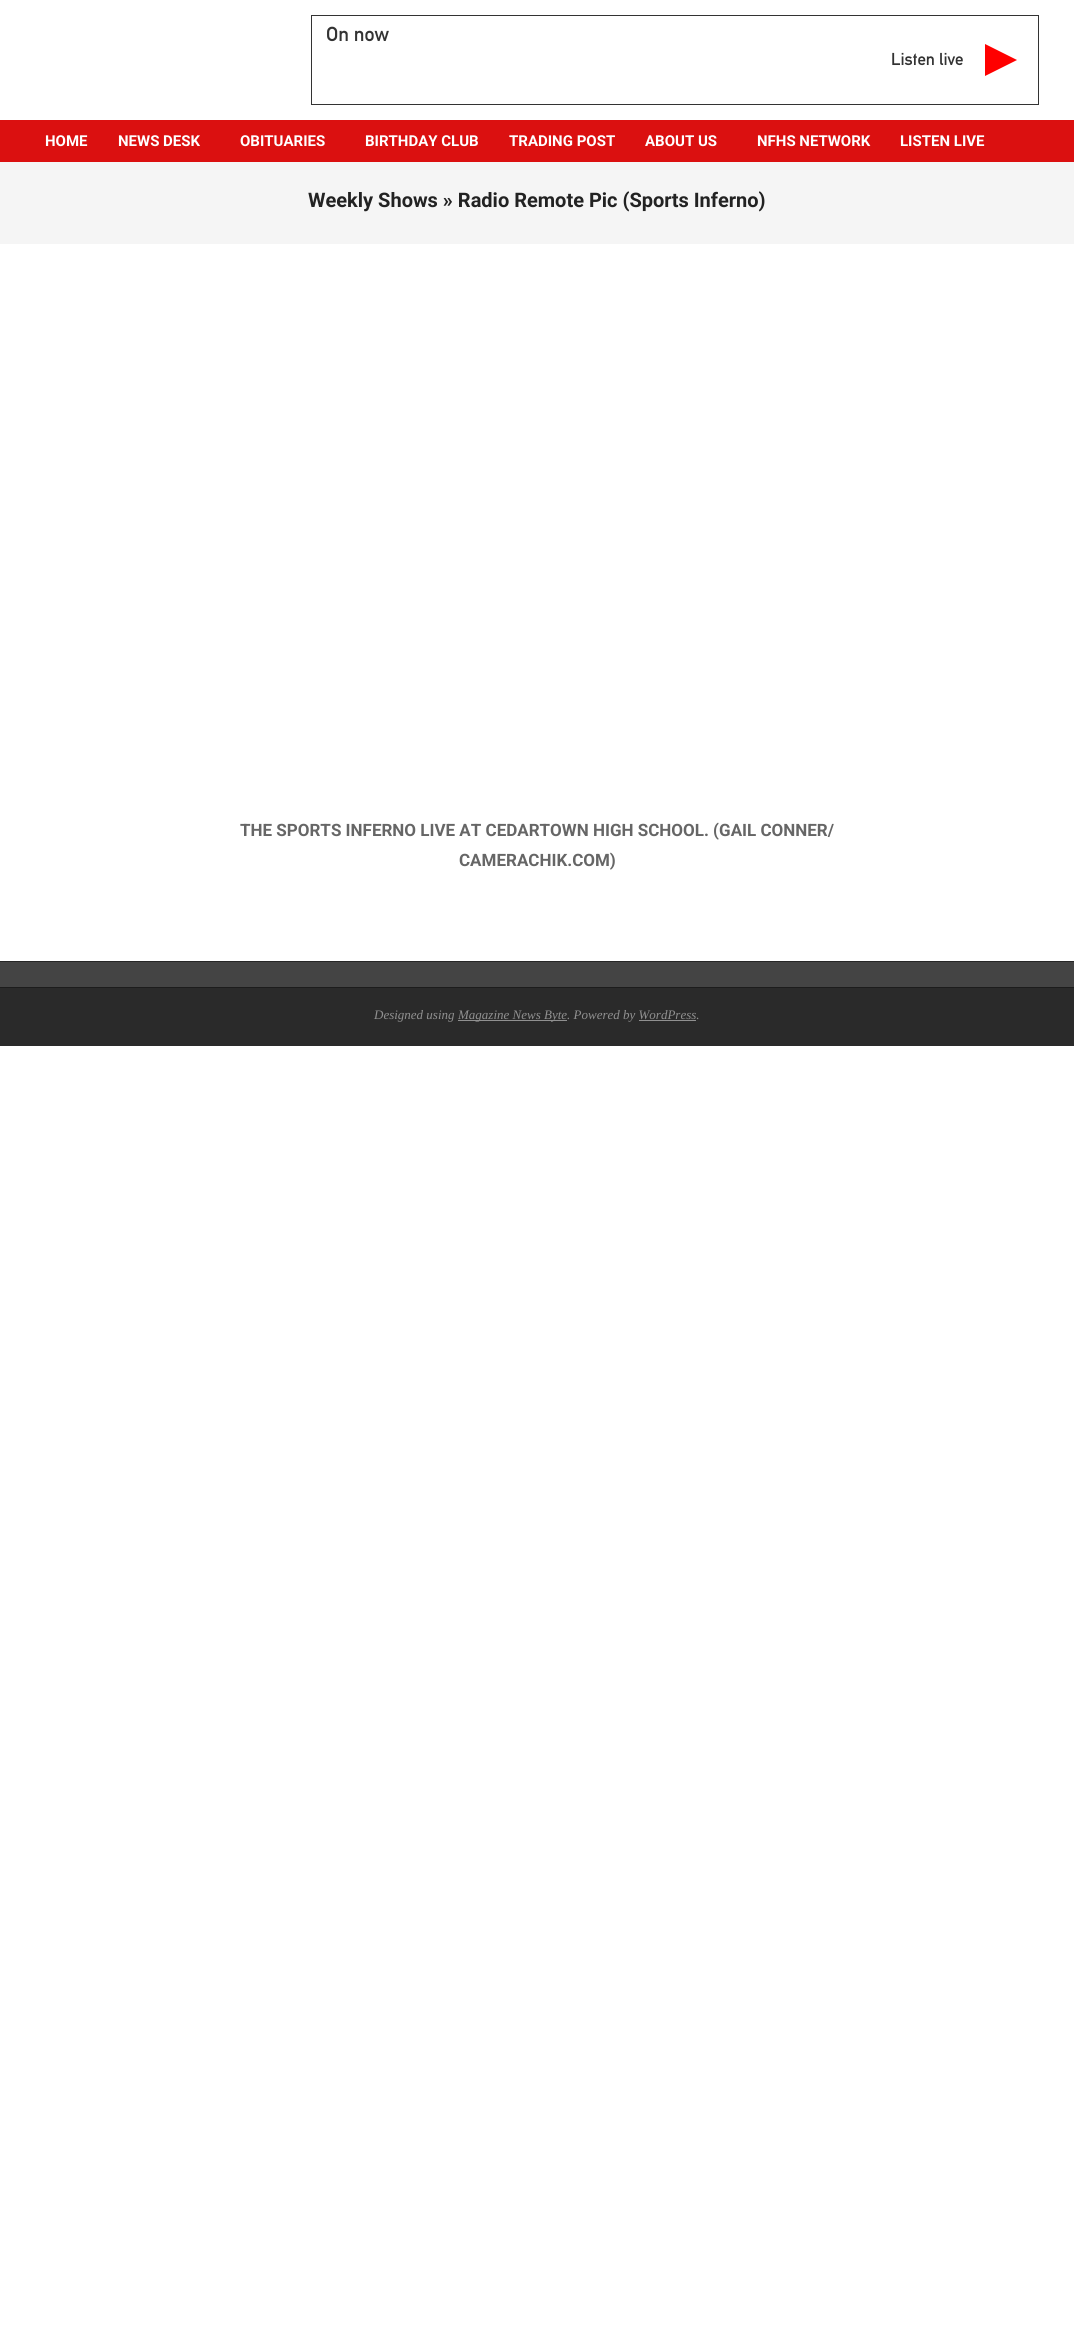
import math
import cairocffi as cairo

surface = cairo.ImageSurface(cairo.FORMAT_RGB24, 1074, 2342)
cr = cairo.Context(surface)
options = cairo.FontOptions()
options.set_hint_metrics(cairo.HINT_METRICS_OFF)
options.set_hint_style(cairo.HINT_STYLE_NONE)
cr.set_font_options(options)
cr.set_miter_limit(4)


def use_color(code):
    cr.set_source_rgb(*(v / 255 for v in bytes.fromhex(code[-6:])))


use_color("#ffffff")
cr.paint()
cr.rectangle(311.5, 15.5, 727, 89)
use_color("#333333")
cr.set_line_width(1)
cr.stroke()
cr.select_font_face("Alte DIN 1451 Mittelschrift")
cr.set_font_size(20)
cr.move_to(326, 41)
cr.show_text("On now")
cr.set_font_size(17)
cr.move_to(891, 65)
cr.show_text("Listen live")
use_color("#ff0000")
cr.new_path()
cr.move_to(985, 76)
cr.line_to(985, 44)
cr.line_to(1017, 60)
cr.close_path()
cr.fill()
use_color("#db1010")
cr.rectangle(0, 120, 1074, 42)
cr.fill()
cr.select_font_face("Roboto", cairo.FONT_SLANT_NORMAL, cairo.FONT_WEIGHT_BOLD)
cr.set_font_size(15)
use_color("#ffffff")
cr.move_to(45, 146)
cr.show_text("HOME")
cr.move_to(118, 146)
cr.show_text("NEWS DESK")
cr.move_to(240, 146)
cr.show_text("OBITUARIES")
cr.move_to(365, 146)
cr.show_text("BIRTHDAY CLUB")
cr.move_to(509, 146)
cr.show_text("TRADING POST")
cr.move_to(645, 146)
cr.show_text("ABOUT US")
cr.move_to(757, 146)
cr.show_text("NFHS NETWORK")
cr.move_to(900, 146)
cr.show_text("LISTEN LIVE")
use_color("#f5f5f5")
cr.rectangle(0, 162, 1074, 82)
cr.fill()
cr.set_font_size(20)
use_color("#222222")
cr.move_to(308, 207)
cr.show_text("Weekly Shows » Radio Remote Pic (Sports Inferno)")
cr.set_font_size(17)
use_color("#666666")
cr.move_to(240, 836)
cr.show_text("THE SPORTS INFERNO LIVE AT CEDARTOWN HIGH SCHOOL. (GAIL CONNER/")
cr.move_to(459, 866)
cr.show_text("CAMERACHIK.COM)")
use_color("#262626")
cr.rectangle(0, 961, 1074, 1)
cr.fill()
use_color("#444444")
cr.rectangle(0, 962, 1074, 25)
cr.fill()
use_color("#2a2a2a")
cr.rectangle(0, 988, 1074, 58)
cr.fill()
use_color("#1c1c1c")
cr.rectangle(0, 987, 1074, 1)
cr.fill()
cr.select_font_face("Liberation Serif", cairo.FONT_SLANT_ITALIC)
cr.set_font_size(13)
use_color("#909090")
cr.move_to(374, 1019)
cr.show_text("Designed using")
cr.rectangle(458, 1020, 109, 1)
cr.fill()
cr.move_to(458, 1019)
cr.show_text("Magazine News Byte. Powered by WordPress.")
cr.rectangle(639, 1020, 57, 1)
cr.fill()
surface.write_to_png("result.png")
